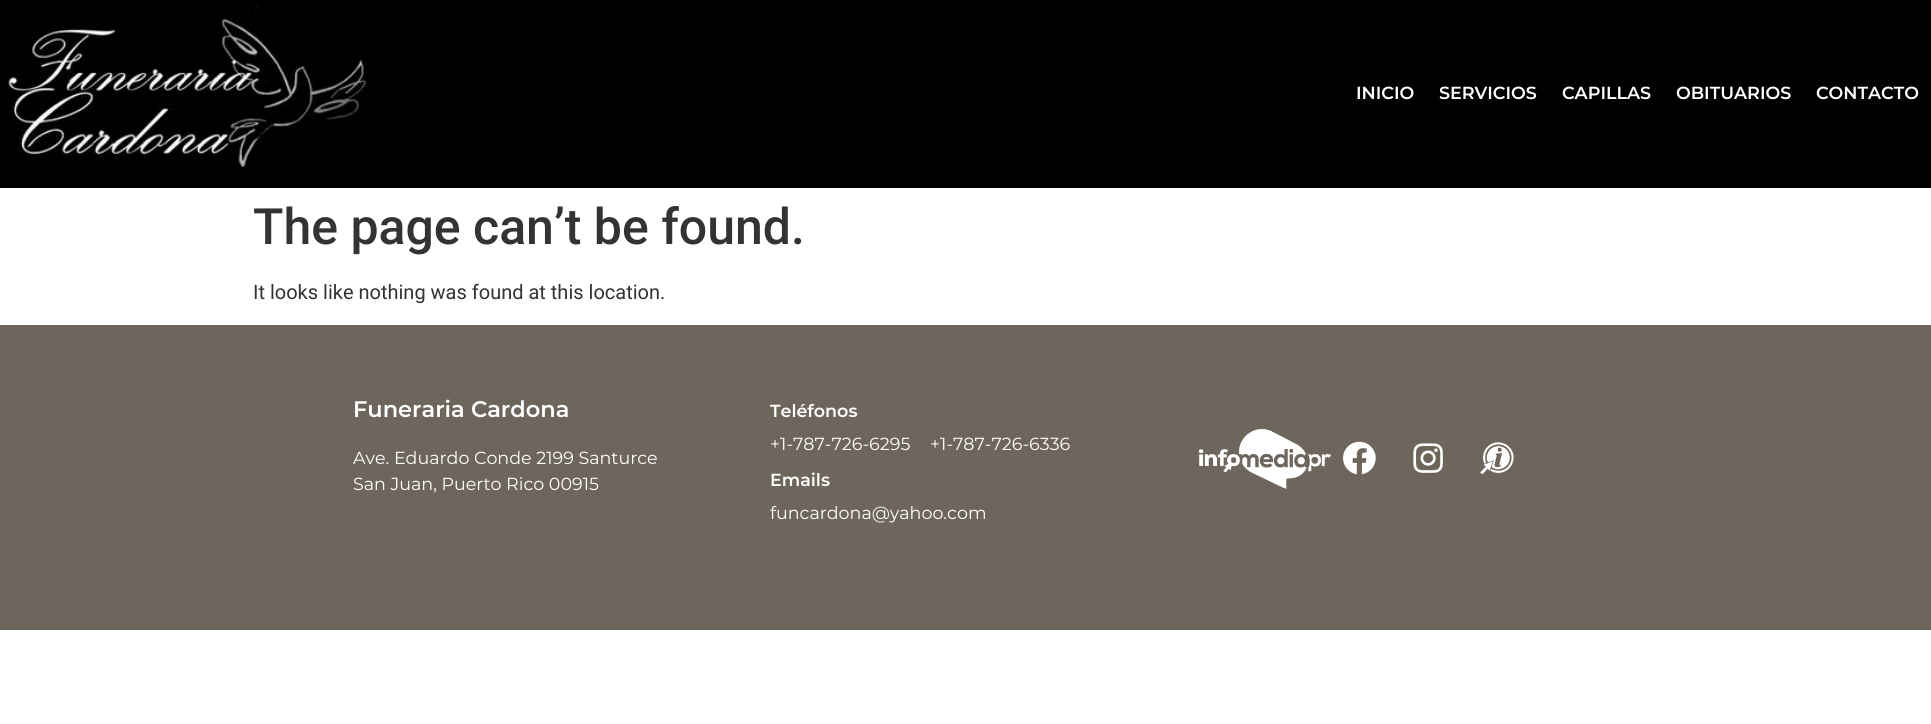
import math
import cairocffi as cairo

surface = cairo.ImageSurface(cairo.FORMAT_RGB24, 1931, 724)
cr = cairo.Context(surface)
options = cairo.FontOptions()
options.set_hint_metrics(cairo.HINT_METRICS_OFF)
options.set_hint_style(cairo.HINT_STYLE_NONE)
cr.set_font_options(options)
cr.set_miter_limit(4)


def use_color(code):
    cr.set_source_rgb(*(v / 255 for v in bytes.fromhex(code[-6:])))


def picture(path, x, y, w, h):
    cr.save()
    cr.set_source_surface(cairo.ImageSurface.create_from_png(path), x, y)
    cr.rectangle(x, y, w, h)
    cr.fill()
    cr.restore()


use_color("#ffffff")
cr.paint()
use_color("#000000")
cr.rectangle(0, 0, 1931, 188)
cr.fill()
picture("img1.png", 8, 4, 358, 163)
cr.select_font_face("Montserrat SemiBold")
cr.set_font_size(17.5)
use_color("#ffffff")
cr.move_to(1356, 99)
cr.show_text("INICIO")
cr.move_to(1439, 99)
cr.show_text("SERVICIOS")
cr.move_to(1562, 99)
cr.show_text("CAPILLAS")
cr.move_to(1676, 99)
cr.show_text("OBITUARIOS")
cr.move_to(1816, 99)
cr.show_text("CONTACTO")
cr.select_font_face("Roboto Medium")
cr.set_font_size(50)
use_color("#333333")
cr.move_to(253, 244)
cr.show_text("The page can’t be found.")
cr.select_font_face("Roboto")
cr.set_font_size(20)
cr.move_to(253, 299)
cr.show_text("It looks like nothing was found at this location.")
use_color("#6e665c")
cr.rectangle(0, 325, 1931, 305)
cr.fill()
cr.select_font_face("Montserrat SemiBold")
cr.set_font_size(22.5)
use_color("#ffffff")
cr.move_to(353, 417)
cr.show_text("Funeraria Cardona")
cr.select_font_face("Montserrat")
cr.set_font_size(17.5)
cr.move_to(353, 464)
cr.show_text("Ave. Eduardo Conde 2199 Santurce")
cr.move_to(353, 490)
cr.show_text("San Juan, Puerto Rico 00915")
cr.select_font_face("Montserrat SemiBold")
cr.move_to(770, 417)
cr.show_text("Teléfonos")
cr.select_font_face("Montserrat")
cr.move_to(770, 450)
cr.show_text("+1-787-726-6295")
cr.move_to(930, 450)
cr.show_text("+1-787-726-6336")
cr.select_font_face("Montserrat SemiBold")
cr.move_to(770, 486)
cr.show_text("Emails")
cr.select_font_face("Montserrat")
cr.move_to(770, 519)
cr.show_text("funcardona@yahoo.com")
picture("img2.png", 1198, 428, 133, 61)
picture("img3.png", 1343, 441, 33, 34)
picture("img4.png", 1413, 443, 30, 30)
picture("img5.png", 1480, 442, 34, 33)
surface.write_to_png("result.png")
